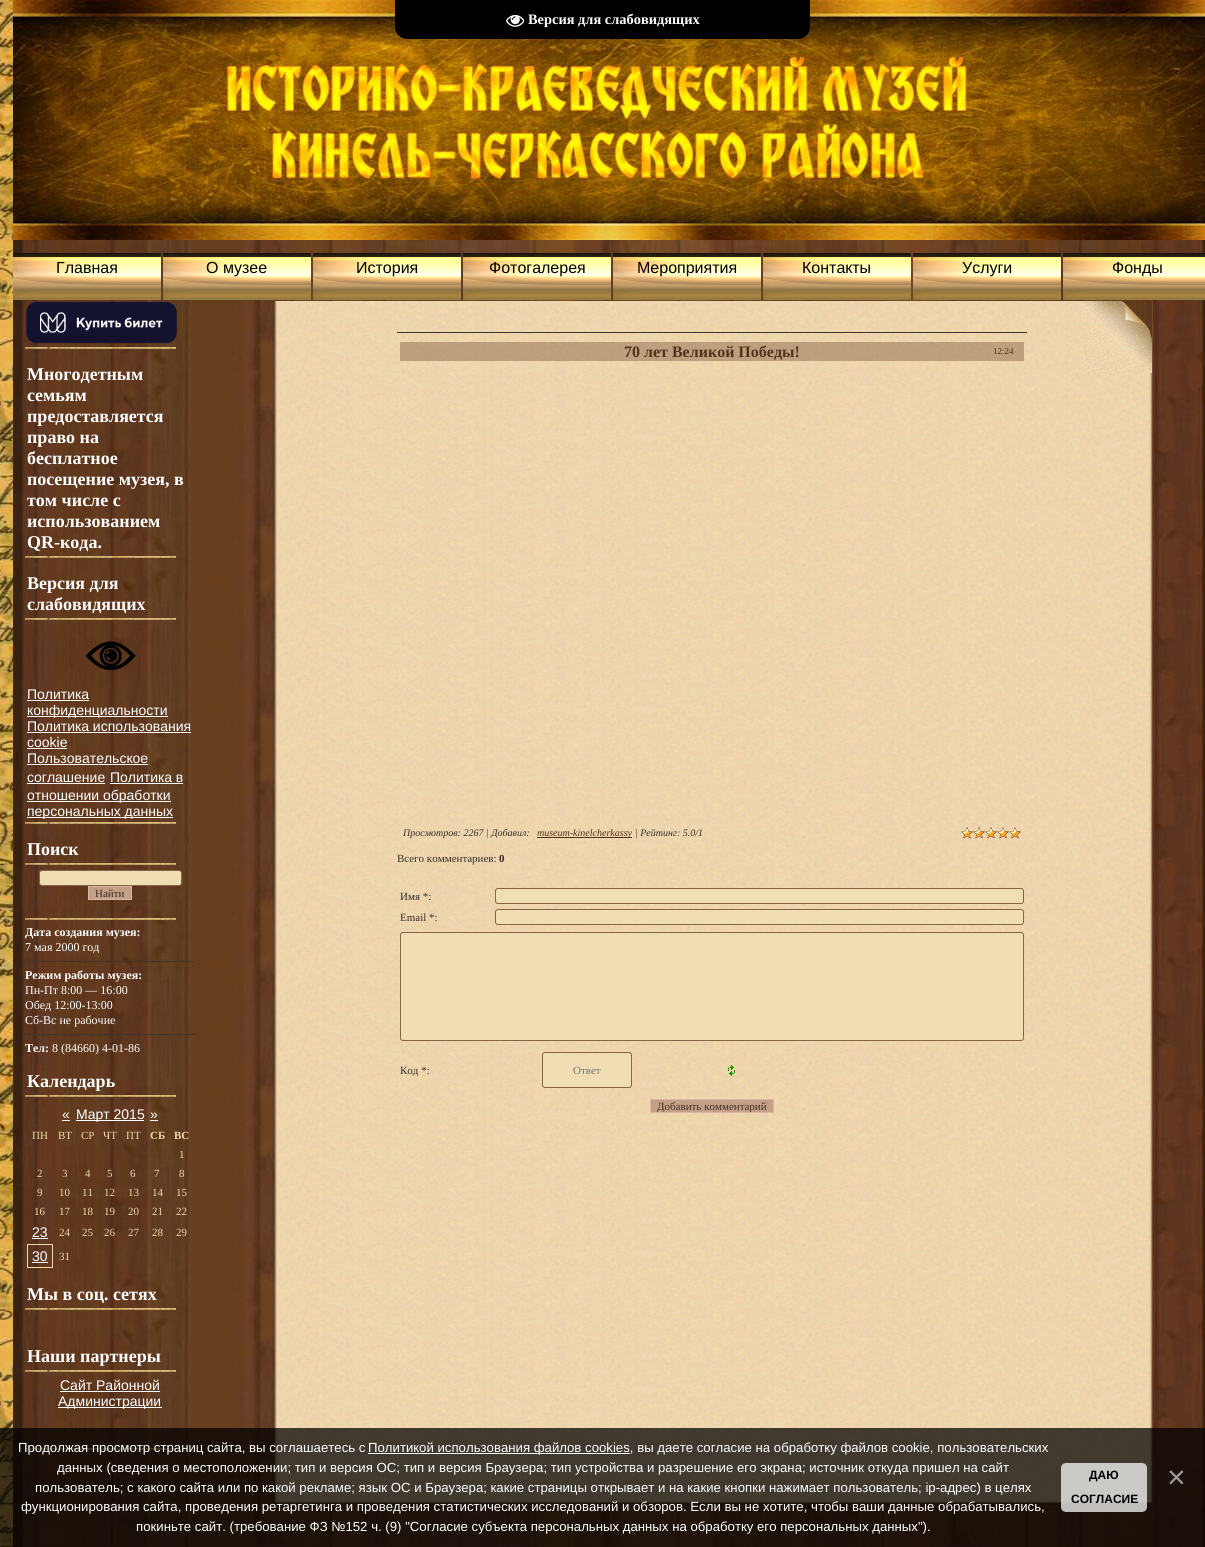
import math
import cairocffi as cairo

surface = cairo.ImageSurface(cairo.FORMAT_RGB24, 1205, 1547)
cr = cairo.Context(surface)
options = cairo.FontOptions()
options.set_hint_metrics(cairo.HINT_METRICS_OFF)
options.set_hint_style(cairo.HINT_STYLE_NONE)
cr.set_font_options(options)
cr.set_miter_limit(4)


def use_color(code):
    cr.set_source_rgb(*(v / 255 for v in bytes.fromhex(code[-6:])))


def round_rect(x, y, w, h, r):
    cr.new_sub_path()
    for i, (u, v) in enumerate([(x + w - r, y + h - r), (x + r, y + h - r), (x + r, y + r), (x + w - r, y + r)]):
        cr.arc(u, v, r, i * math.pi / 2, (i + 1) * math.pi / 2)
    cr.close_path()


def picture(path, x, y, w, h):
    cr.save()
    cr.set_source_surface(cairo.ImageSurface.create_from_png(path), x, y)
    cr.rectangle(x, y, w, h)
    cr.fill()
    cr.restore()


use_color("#ffffff")
cr.paint()
picture("img4.png", 13, 0, 1192, 240)
use_color("#000000")
cr.new_path()
cr.move_to(395, 0)
cr.line_to(810, 0)
cr.line_to(810, 27)
cr.curve_to(810, 33.5, 804.5, 39, 798, 39)
cr.line_to(407, 39)
cr.curve_to(400.5, 39, 395, 33.5, 395, 27)
cr.close_path()
cr.fill()
picture("img1.png", 506, 14, 18, 13)
cr.select_font_face("Liberation Serif", cairo.FONT_SLANT_NORMAL, cairo.FONT_WEIGHT_BOLD)
cr.set_font_size(14.4)
use_color("#ffffff")
cr.move_to(528, 24)
cr.show_text("Версия для слабовидящих")
picture("img2.png", 0, 0, 13, 1547)
picture("img3.png", 13, 240, 1192, 1307)
picture("img5.png", 13, 253, 148, 47)
cr.select_font_face("Liberation Sans")
cr.set_font_size(16)
use_color("#000000")
cr.move_to(56, 273)
cr.show_text("Главная")
picture("img5.png", 163, 253, 148, 47)
cr.move_to(206, 273)
cr.show_text("О музее")
picture("img5.png", 313, 253, 148, 47)
cr.move_to(356, 273)
cr.show_text("История")
picture("img5.png", 463, 253, 148, 47)
cr.move_to(489, 273)
cr.show_text("Фотогалерея")
picture("img5.png", 613, 253, 148, 47)
cr.move_to(637, 273)
cr.show_text("Мероприятия")
picture("img5.png", 763, 253, 148, 47)
cr.move_to(802, 273)
cr.show_text("Контакты")
picture("img5.png", 913, 253, 148, 47)
cr.move_to(962, 273)
cr.show_text("Услуги")
picture("img6.png", 1063, 253, 142, 47)
cr.move_to(1112, 273)
cr.show_text("Фонды")
picture("img7.png", 272, 1500, 881, 5)
picture("img8.png", 272, 301, 881, 1200)
picture("img9.png", 26, 301, 151, 43)
picture("img10.png", 25, 347, 151, 2)
picture("img10.png", 25, 556, 151, 2)
cr.select_font_face("Liberation Serif", cairo.FONT_SLANT_NORMAL, cairo.FONT_WEIGHT_BOLD)
cr.set_font_size(18)
use_color("#ffffff")
cr.move_to(27, 380)
cr.show_text("Многодетным")
cr.move_to(27, 401)
cr.show_text("семьям")
cr.move_to(27, 422)
cr.show_text("предоставляется")
cr.move_to(27, 443)
cr.show_text("право на")
cr.move_to(27, 464)
cr.show_text("бесплатное")
cr.move_to(27, 485)
cr.show_text("посещение музея, в")
cr.move_to(27, 506)
cr.show_text("том числе с")
cr.move_to(27, 527)
cr.show_text("использованием")
cr.move_to(27, 548)
cr.show_text("QR-кода.")
picture("img10.png", 25, 618, 151, 2)
cr.move_to(27, 589)
cr.show_text("Версия для")
cr.move_to(27, 610)
cr.show_text("слабовидящих")
picture("img11.png", 85, 641, 51, 30)
picture("img10.png", 25, 822, 151, 2)
cr.select_font_face("Liberation Sans")
cr.set_font_size(14)
cr.move_to(27, 699)
cr.show_text("Политика")
cr.rectangle(27, 700, 62, 1)
cr.fill()
cr.rectangle(27, 716, 141, 1)
cr.fill()
cr.move_to(27, 715)
cr.show_text("конфиденциальности")
cr.move_to(27, 731)
cr.show_text("Политика использования")
cr.rectangle(27, 732, 164, 1)
cr.fill()
cr.move_to(27, 747)
cr.show_text("cookie")
cr.rectangle(27, 748, 40, 1)
cr.fill()
cr.move_to(27, 763)
cr.show_text("Пользовательское")
cr.rectangle(27, 764, 121, 1)
cr.fill()
cr.move_to(27, 782)
cr.show_text("соглашение")
cr.rectangle(27, 783, 78, 1)
cr.fill()
cr.move_to(110, 782)
cr.show_text("Политика в")
cr.rectangle(110, 783, 73, 1)
cr.fill()
cr.rectangle(27, 801, 144, 1)
cr.fill()
cr.move_to(27, 800)
cr.show_text("отношении обработки")
cr.rectangle(27, 817, 146, 1)
cr.fill()
cr.move_to(27, 816)
cr.show_text("персональных данных")
picture("img10.png", 25, 863, 151, 2)
cr.select_font_face("Liberation Serif", cairo.FONT_SLANT_NORMAL, cairo.FONT_WEIGHT_BOLD)
cr.set_font_size(18)
cr.move_to(27, 855)
cr.show_text("Поиск")
use_color("#f0ddb4")
round_rect(39.5, 870.5, 142, 15, 2.5)
cr.fill_preserve()
use_color("#866545")
cr.set_line_width(1)
cr.stroke()
use_color("#c3a087")
cr.rectangle(88.5, 886.5, 43, 13)
cr.fill_preserve()
use_color("#d9b6a0")
cr.stroke()
cr.select_font_face("Liberation Serif")
cr.set_font_size(11)
use_color("#442f1f")
cr.move_to(95, 897)
cr.show_text("Найти")
picture("img10.png", 25, 918, 151, 2)
cr.select_font_face("Liberation Serif", cairo.FONT_SLANT_NORMAL, cairo.FONT_WEIGHT_BOLD)
cr.set_font_size(12)
use_color("#ffffff")
cr.move_to(25, 936)
cr.show_text("Дата создания музея:")
cr.select_font_face("Liberation Serif")
cr.move_to(25, 951)
cr.show_text("7 мая 2000 год")
use_color("#42352b")
cr.rectangle(25, 961, 170, 1)
cr.fill()
cr.select_font_face("Liberation Serif", cairo.FONT_SLANT_NORMAL, cairo.FONT_WEIGHT_BOLD)
use_color("#ffffff")
cr.move_to(25, 979)
cr.show_text("Режим работы музея:")
cr.select_font_face("Liberation Serif")
cr.move_to(25, 994)
cr.show_text("Пн-Пт 8:00 — 16:00")
cr.move_to(25, 1009)
cr.show_text("Обед 12:00-13:00")
cr.move_to(25, 1024)
cr.show_text("Сб-Вс не рабочие")
use_color("#42352b")
cr.rectangle(25, 1034, 170, 1)
cr.fill()
cr.select_font_face("Liberation Serif", cairo.FONT_SLANT_NORMAL, cairo.FONT_WEIGHT_BOLD)
use_color("#ffffff")
cr.move_to(25, 1052)
cr.show_text("Тел:")
cr.select_font_face("Liberation Serif")
cr.move_to(52, 1052)
cr.show_text("8 (84660) 4-01-86")
picture("img10.png", 25, 1095, 151, 2)
cr.select_font_face("Liberation Serif", cairo.FONT_SLANT_NORMAL, cairo.FONT_WEIGHT_BOLD)
cr.set_font_size(18)
cr.move_to(27, 1087)
cr.show_text("Календарь")
cr.select_font_face("Liberation Sans")
cr.set_font_size(14)
cr.move_to(62, 1119)
cr.show_text("«")
cr.rectangle(62, 1120, 8, 1)
cr.fill()
cr.rectangle(76, 1120, 68, 1)
cr.fill()
cr.move_to(76, 1119)
cr.show_text("Март 2015")
cr.move_to(150, 1119)
cr.show_text("»")
cr.rectangle(150, 1120, 8, 1)
cr.fill()
cr.select_font_face("Liberation Serif")
cr.set_font_size(11)
use_color("#edd9ac")
cr.move_to(32, 1139)
cr.show_text("ПН")
cr.move_to(58, 1139)
cr.show_text("ВТ")
cr.move_to(81, 1139)
cr.show_text("СР")
cr.move_to(103, 1139)
cr.show_text("ЧТ")
cr.move_to(126, 1139)
cr.show_text("ПТ")
cr.select_font_face("Liberation Serif", cairo.FONT_SLANT_NORMAL, cairo.FONT_WEIGHT_BOLD)
cr.move_to(150, 1139)
cr.show_text("СБ")
cr.move_to(174, 1139)
cr.show_text("ВС")
cr.select_font_face("Liberation Serif")
cr.move_to(179, 1158)
cr.show_text("1")
cr.move_to(37, 1177)
cr.show_text("2")
cr.move_to(62, 1177)
cr.show_text("3")
cr.move_to(85, 1177)
cr.show_text("4")
cr.move_to(107, 1177)
cr.show_text("5")
cr.move_to(130, 1177)
cr.show_text("6")
cr.move_to(154, 1177)
cr.show_text("7")
cr.move_to(179, 1177)
cr.show_text("8")
cr.move_to(37, 1196)
cr.show_text("9")
cr.move_to(59, 1196)
cr.show_text("10")
cr.move_to(82, 1196)
cr.show_text("11")
cr.move_to(104, 1196)
cr.show_text("12")
cr.move_to(128, 1196)
cr.show_text("13")
cr.move_to(152, 1196)
cr.show_text("14")
cr.move_to(176, 1196)
cr.show_text("15")
cr.move_to(34, 1215)
cr.show_text("16")
cr.move_to(59, 1215)
cr.show_text("17")
cr.move_to(82, 1215)
cr.show_text("18")
cr.move_to(104, 1215)
cr.show_text("19")
cr.move_to(128, 1215)
cr.show_text("20")
cr.move_to(152, 1215)
cr.show_text("21")
cr.move_to(176, 1215)
cr.show_text("22")
cr.select_font_face("Liberation Sans")
cr.set_font_size(14)
use_color("#ffffff")
cr.move_to(32, 1237)
cr.show_text("23")
cr.rectangle(32, 1238, 16, 1)
cr.fill()
cr.select_font_face("Liberation Serif")
cr.set_font_size(11)
use_color("#edd9ac")
cr.move_to(59, 1236)
cr.show_text("24")
cr.move_to(82, 1236)
cr.show_text("25")
cr.move_to(104, 1236)
cr.show_text("26")
cr.move_to(128, 1236)
cr.show_text("27")
cr.move_to(152, 1236)
cr.show_text("28")
cr.move_to(176, 1236)
cr.show_text("29")
cr.rectangle(27.5, 1244.5, 25, 23)
cr.stroke()
cr.select_font_face("Liberation Sans")
cr.set_font_size(14)
use_color("#ffffff")
cr.move_to(32, 1261)
cr.show_text("30")
cr.rectangle(32, 1262, 16, 1)
cr.fill()
cr.select_font_face("Liberation Serif")
cr.set_font_size(11)
use_color("#edd9ac")
cr.move_to(59, 1260)
cr.show_text("31")
picture("img10.png", 25, 1308, 151, 2)
cr.select_font_face("Liberation Serif", cairo.FONT_SLANT_NORMAL, cairo.FONT_WEIGHT_BOLD)
cr.set_font_size(18)
use_color("#ffffff")
cr.move_to(27, 1300)
cr.show_text("Мы в соц. сетях")
picture("img10.png", 25, 1370, 151, 2)
cr.move_to(27, 1362)
cr.show_text("Наши партнеры")
cr.select_font_face("Liberation Sans")
cr.set_font_size(14)
cr.move_to(60, 1390)
cr.show_text("Сайт Районной")
cr.rectangle(60, 1391, 100, 1)
cr.fill()
cr.rectangle(58, 1407, 104, 1)
cr.fill()
cr.move_to(58, 1406)
cr.show_text("Администрации")
picture("img10.png", 25, 1448, 151, 2)
picture("img12.png", 1077, 301, 75, 72)
use_color("#42352b")
cr.rectangle(397, 332, 630, 1)
cr.fill()
cr.set_source_rgba(0.412, 0.251, 0.153, 0.36)
cr.rectangle(400, 342, 624, 19)
cr.fill()
cr.select_font_face("Liberation Serif", cairo.FONT_SLANT_NORMAL, cairo.FONT_WEIGHT_BOLD)
cr.set_font_size(16)
use_color("#55311a")
cr.move_to(624, 357)
cr.show_text("70 лет Великой Победы!")
cr.select_font_face("Liberation Serif")
cr.set_font_size(9)
cr.move_to(993, 354)
cr.show_text("12:24")
cr.select_font_face("Liberation Serif", cairo.FONT_SLANT_ITALIC)
cr.set_font_size(10)
use_color("#352f2b")
cr.move_to(403, 836)
cr.show_text("Просмотров: 2267 | Добавил:")
use_color("#55311a")
cr.rectangle(537, 837, 95, 1)
cr.fill()
cr.move_to(537, 836)
cr.show_text("museum-kinelcherkassy")
use_color("#352f2b")
cr.move_to(635, 836)
cr.show_text("| Рейтинг: 5.0/1")
picture("img13.png", 961, 827, 60, 12)
picture("img14.png", 961, 827, 60, 12)
cr.select_font_face("Liberation Serif")
cr.set_font_size(11)
cr.move_to(397, 862)
cr.show_text("Всего комментариев:")
cr.select_font_face("Liberation Serif", cairo.FONT_SLANT_NORMAL, cairo.FONT_WEIGHT_BOLD)
cr.move_to(499, 862)
cr.show_text("0")
cr.select_font_face("Liberation Serif")
cr.move_to(400, 900)
cr.show_text("Имя *:")
use_color("#f0ddb4")
round_rect(495.5, 888.5, 528, 15, 2.5)
cr.fill_preserve()
use_color("#866545")
cr.stroke()
use_color("#352f2b")
cr.move_to(400, 921)
cr.show_text("Email *:")
use_color("#f0ddb4")
round_rect(495.5, 909.5, 528, 15, 2.5)
cr.fill_preserve()
use_color("#866545")
cr.stroke()
use_color("#f0ddb4")
round_rect(400.5, 932.5, 623, 108, 2.5)
cr.fill_preserve()
use_color("#866545")
cr.stroke()
use_color("#352f2b")
cr.move_to(400, 1074)
cr.show_text("Код *:")
use_color("#f0ddb4")
round_rect(542.5, 1052.5, 89, 35, 2.5)
cr.fill_preserve()
use_color("#866545")
cr.stroke()
use_color("#757575")
cr.move_to(573, 1074)
cr.show_text("Ответ")
picture("img15.png", 728, 1065, 7, 11)
use_color("#c3a087")
cr.rectangle(650.5, 1099.5, 123, 13)
cr.fill_preserve()
use_color("#d9b6a0")
cr.stroke()
cr.save()
cr.rectangle(651, 1100, 122, 12)
cr.clip()
use_color("#442f1f")
cr.move_to(657, 1110)
cr.show_text("Добавить комментарий")
cr.restore()
cr.set_source_rgba(0, 0, 0, 0.73)
cr.rectangle(0, 1428, 1205, 119)
cr.fill()
cr.select_font_face("Liberation Sans")
cr.set_font_size(13.2)
use_color("#ffffff")
cr.move_to(18, 1452)
cr.show_text("Продолжая просмотр страниц сайта, вы соглашаетесь с")
cr.rectangle(368, 1453, 262, 1)
cr.fill()
cr.move_to(368, 1452)
cr.show_text("Политикой использования файлов cookies, вы даете согласие на обработку файлов cookie, пользовательских")
cr.move_to(57, 1472)
cr.show_text("данных (сведения о местоположении; тип и версия ОС; тип и версия Браузера; тип устройства и разрешение его экрана; источник откуда пришел на сайт")
cr.move_to(35, 1492)
cr.show_text("пользователь; с какого сайта или по какой рекламе; язык ОС и Браузера; какие страницы открывает и на какие кнопки нажимает пользователь; ip-адрес) в целях")
cr.move_to(21, 1511)
cr.show_text("функционирования сайта, проведения ретаргетинга и проведения статистических исследований и обзоров. Если вы не хотите, чтобы ваши данные обрабатывались,")
cr.move_to(136, 1531)
cr.show_text("покиньте сайт. (требование ФЗ №152 ч. (9) \"Согласие субъекта персональных данных на обработку его персональных данных\").")
cr.set_source_rgba(1, 1, 1, 0.73)
round_rect(1061, 1463, 86, 49, 5)
cr.fill()
cr.select_font_face("Liberation Sans", cairo.FONT_SLANT_NORMAL, cairo.FONT_WEIGHT_BOLD)
cr.set_font_size(12)
use_color("#000000")
cr.move_to(1089, 1479)
cr.show_text("ДАЮ")
cr.move_to(1071, 1503)
cr.show_text("СОГЛАСИЕ")
cr.select_font_face("Liberation Sans")
cr.set_font_size(32)
use_color("#999999")
cr.move_to(1167, 1488)
cr.show_text("×")
surface.write_to_png("result.png")
